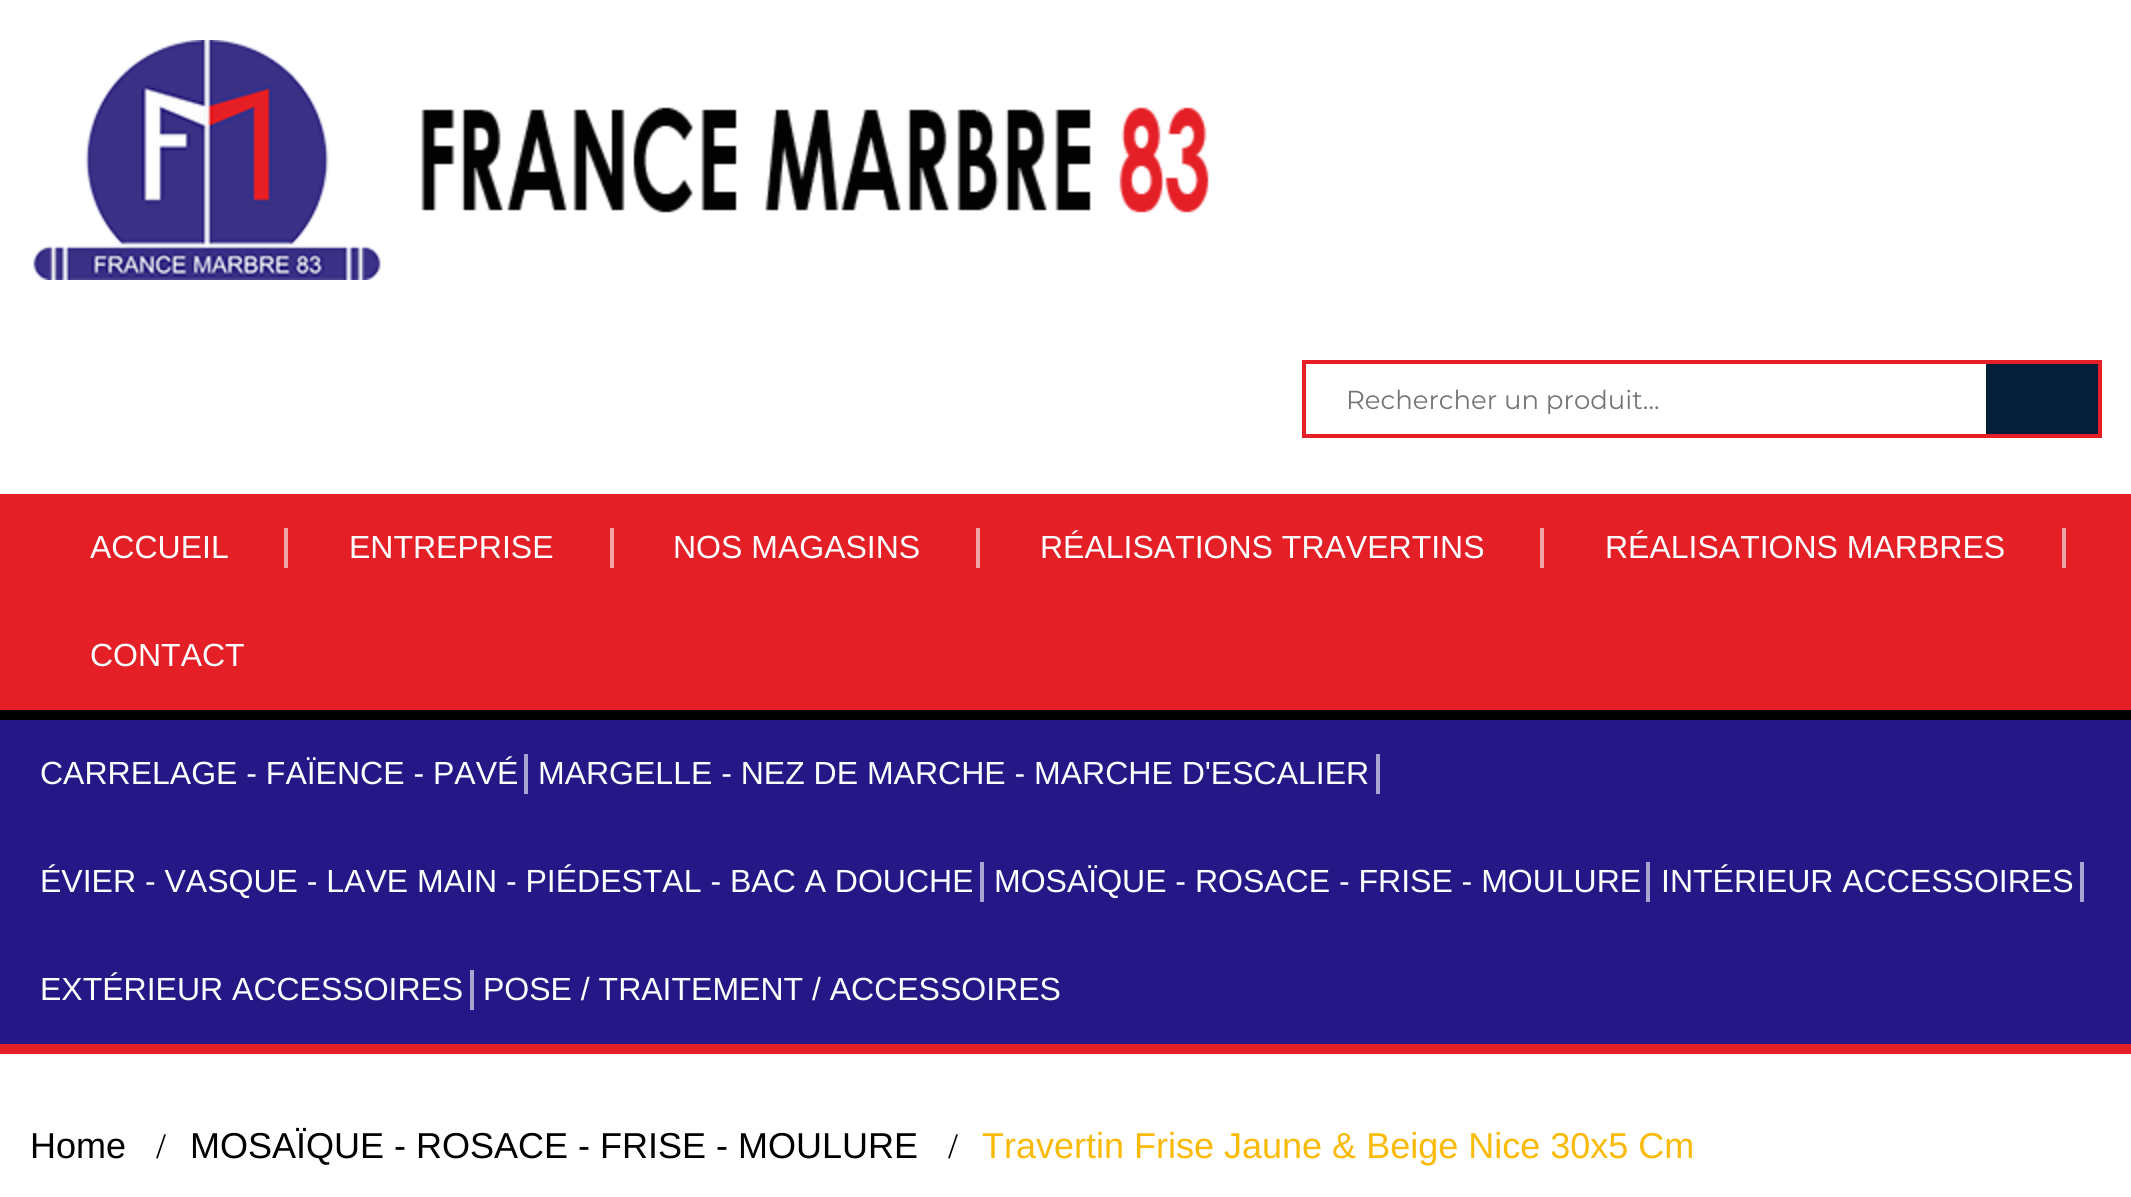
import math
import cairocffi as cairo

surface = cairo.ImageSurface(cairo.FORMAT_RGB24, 2131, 1197)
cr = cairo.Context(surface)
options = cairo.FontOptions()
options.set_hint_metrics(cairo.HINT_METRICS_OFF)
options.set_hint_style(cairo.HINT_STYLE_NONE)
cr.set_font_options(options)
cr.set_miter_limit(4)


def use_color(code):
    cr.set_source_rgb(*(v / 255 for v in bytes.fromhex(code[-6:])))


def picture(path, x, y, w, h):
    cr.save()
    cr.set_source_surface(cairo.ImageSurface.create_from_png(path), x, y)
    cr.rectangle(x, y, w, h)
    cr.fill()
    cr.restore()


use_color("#ffffff")
cr.paint()
picture("img1.png", 33, 40, 1176, 240)
cr.rectangle(1304, 362, 796, 74)
use_color("#e41f26")
cr.set_line_width(4)
cr.stroke()
cr.select_font_face("Montserrat")
cr.set_font_size(26)
use_color("#757575")
cr.move_to(1346, 409)
cr.show_text("Rechercher un produit...")
use_color("#042038")
cr.rectangle(1986, 364, 112, 70)
cr.fill()
use_color("#e41f26")
cr.rectangle(0, 494, 2131, 216)
cr.fill()
use_color("#000000")
cr.rectangle(0, 710, 2131, 10)
cr.fill()
cr.select_font_face("Arimo")
cr.set_font_size(32)
use_color("#ffffff")
cr.move_to(90, 558)
cr.show_text("ACCUEIL")
use_color("#f4a5a8")
cr.rectangle(284, 528, 4, 40)
cr.fill()
use_color("#ffffff")
cr.move_to(349, 558)
cr.show_text("ENTREPRISE")
use_color("#f4a5a8")
cr.rectangle(610, 528, 4, 40)
cr.fill()
use_color("#ffffff")
cr.move_to(673, 558)
cr.show_text("NOS MAGASINS")
use_color("#f4a5a8")
cr.rectangle(976, 528, 4, 40)
cr.fill()
use_color("#ffffff")
cr.move_to(1040, 558)
cr.show_text("RÉALISATIONS TRAVERTINS")
use_color("#f4a5a8")
cr.rectangle(1540, 528, 4, 40)
cr.fill()
use_color("#ffffff")
cr.move_to(1605, 558)
cr.show_text("RÉALISATIONS MARBRES")
use_color("#f4a5a8")
cr.rectangle(2062, 528, 4, 40)
cr.fill()
use_color("#ffffff")
cr.move_to(90, 666)
cr.show_text("CONTACT")
use_color("#251886")
cr.rectangle(0, 720, 2131, 324)
cr.fill()
use_color("#e41f26")
cr.rectangle(0, 1044, 2131, 10)
cr.fill()
use_color("#ffffff")
cr.move_to(40, 784)
cr.show_text("CARRELAGE - FAÏENCE - PAVÉ")
use_color("#a8a3cf")
cr.rectangle(524, 754, 4, 40)
cr.fill()
use_color("#ffffff")
cr.move_to(538, 784)
cr.show_text("MARGELLE - NEZ DE MARCHE - MARCHE D'ESCALIER")
use_color("#a8a3cf")
cr.rectangle(1376, 754, 4, 40)
cr.fill()
use_color("#ffffff")
cr.move_to(40, 892)
cr.show_text("ÉVIER - VASQUE - LAVE MAIN - PIÉDESTAL - BAC A DOUCHE")
use_color("#a8a3cf")
cr.rectangle(980, 862, 4, 40)
cr.fill()
use_color("#ffffff")
cr.move_to(994, 892)
cr.show_text("MOSAÏQUE - ROSACE - FRISE - MOULURE")
use_color("#a8a3cf")
cr.rectangle(1646, 862, 4, 40)
cr.fill()
use_color("#ffffff")
cr.move_to(1661, 892)
cr.show_text("INTÉRIEUR ACCESSOIRES")
use_color("#a8a3cf")
cr.rectangle(2080, 862, 4, 40)
cr.fill()
use_color("#ffffff")
cr.move_to(40, 1000)
cr.show_text("EXTÉRIEUR ACCESSOIRES")
use_color("#a8a3cf")
cr.rectangle(470, 970, 4, 40)
cr.fill()
use_color("#ffffff")
cr.move_to(483, 1000)
cr.show_text("POSE / TRAITEMENT / ACCESSOIRES")
cr.set_font_size(36)
use_color("#000000")
cr.move_to(30, 1158)
cr.show_text("Home")
cr.select_font_face("Liberation Serif")
cr.move_to(156, 1158)
cr.show_text("/")
cr.select_font_face("Arimo")
cr.move_to(190, 1158)
cr.show_text("MOSAÏQUE - ROSACE - FRISE - MOULURE")
cr.select_font_face("Liberation Serif")
cr.move_to(948, 1158)
cr.show_text("/")
cr.select_font_face("Arimo")
use_color("#fbb908")
cr.move_to(982, 1158)
cr.show_text("Travertin Frise Jaune & Beige Nice 30x5 Cm")
surface.write_to_png("result.png")
